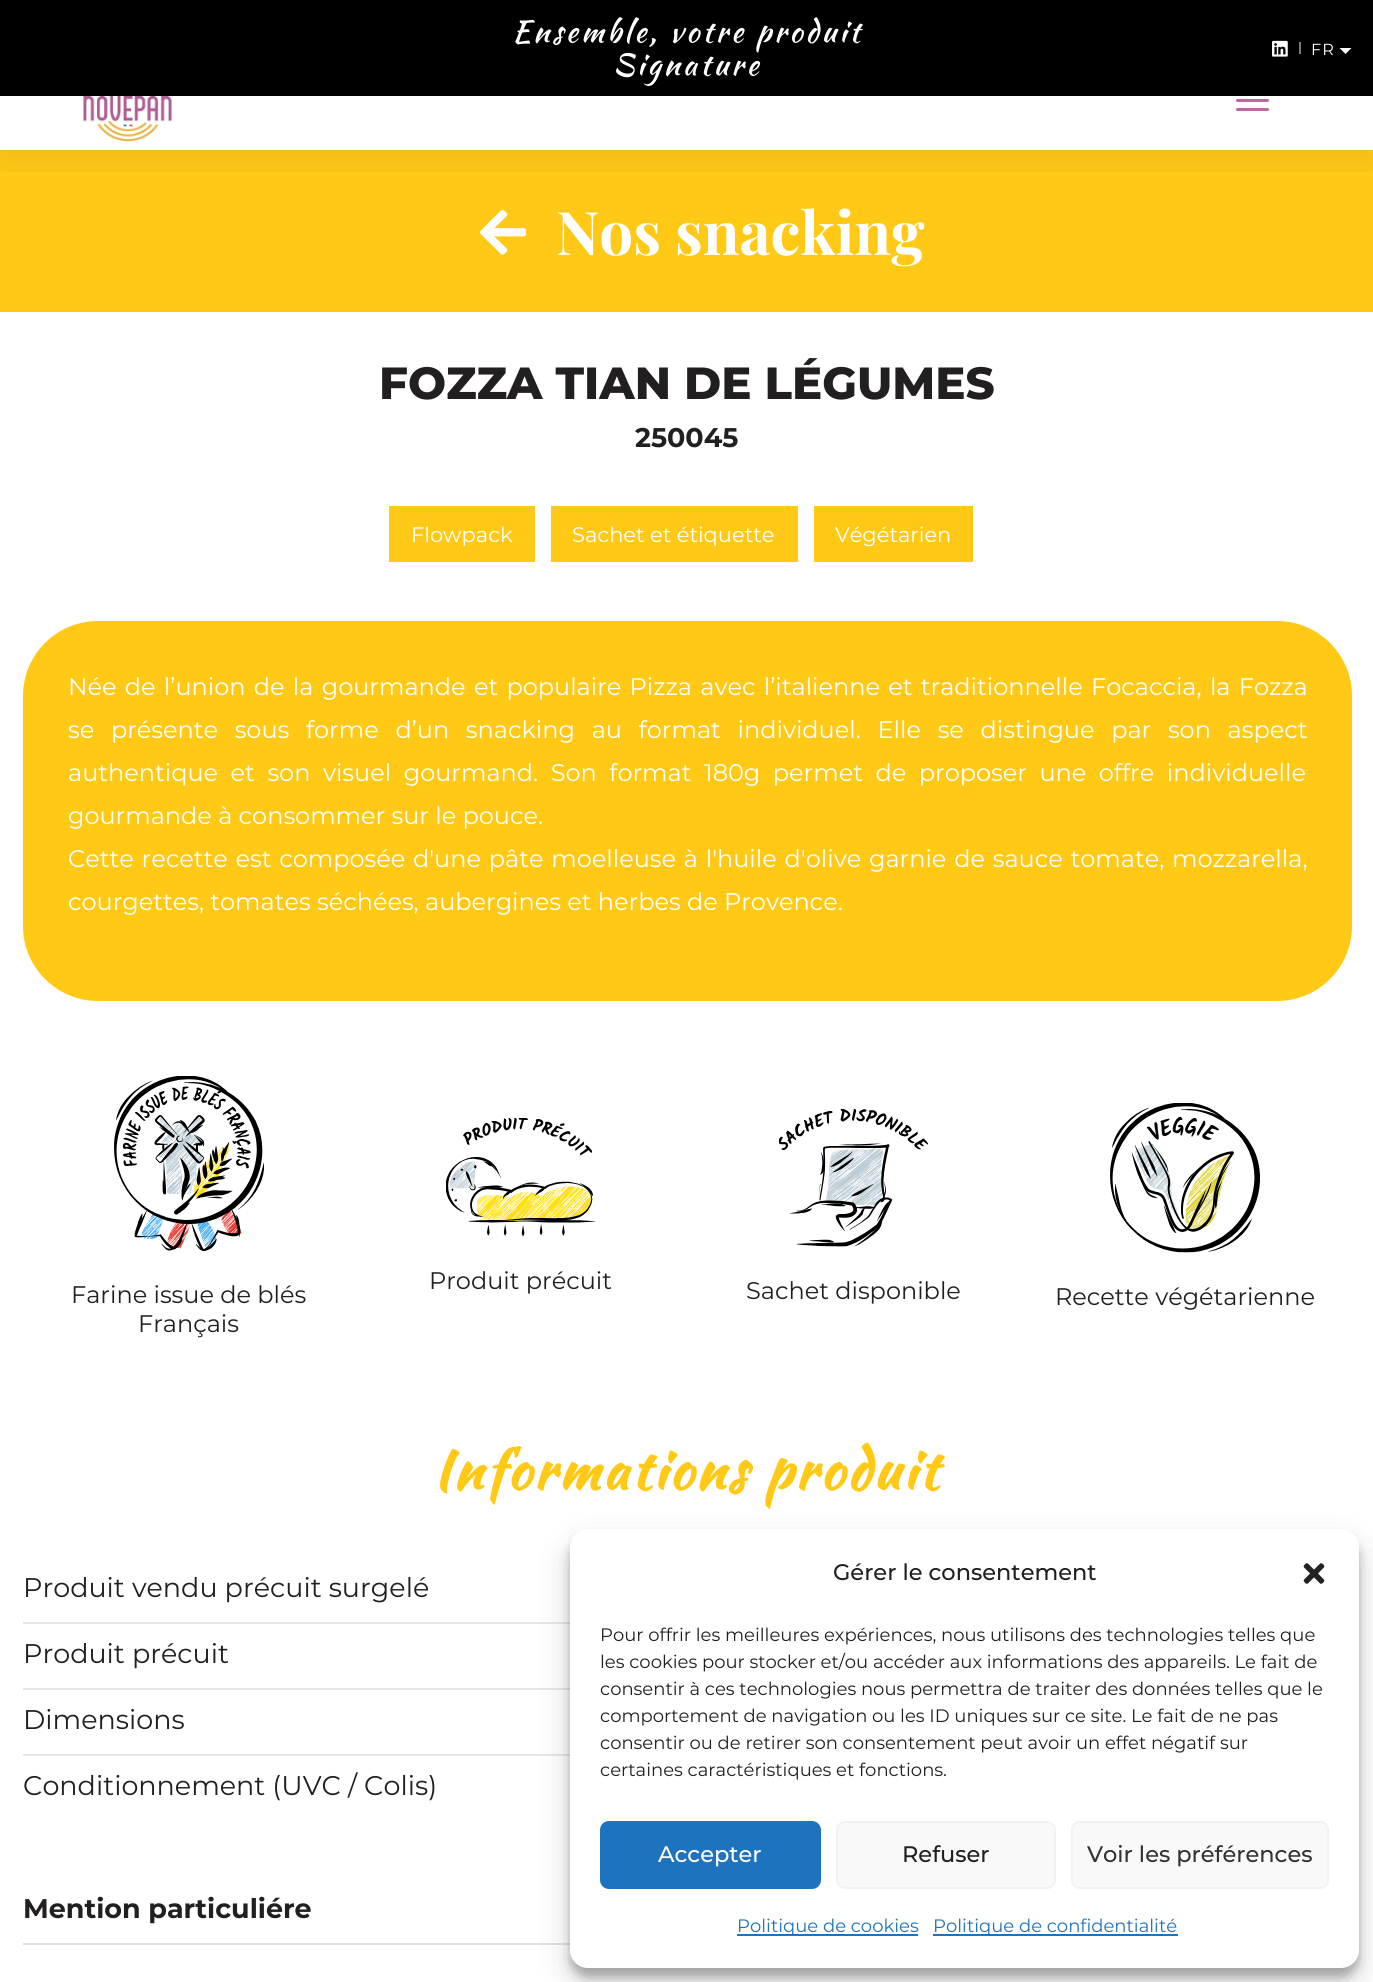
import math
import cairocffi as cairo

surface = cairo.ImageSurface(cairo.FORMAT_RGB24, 1373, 1982)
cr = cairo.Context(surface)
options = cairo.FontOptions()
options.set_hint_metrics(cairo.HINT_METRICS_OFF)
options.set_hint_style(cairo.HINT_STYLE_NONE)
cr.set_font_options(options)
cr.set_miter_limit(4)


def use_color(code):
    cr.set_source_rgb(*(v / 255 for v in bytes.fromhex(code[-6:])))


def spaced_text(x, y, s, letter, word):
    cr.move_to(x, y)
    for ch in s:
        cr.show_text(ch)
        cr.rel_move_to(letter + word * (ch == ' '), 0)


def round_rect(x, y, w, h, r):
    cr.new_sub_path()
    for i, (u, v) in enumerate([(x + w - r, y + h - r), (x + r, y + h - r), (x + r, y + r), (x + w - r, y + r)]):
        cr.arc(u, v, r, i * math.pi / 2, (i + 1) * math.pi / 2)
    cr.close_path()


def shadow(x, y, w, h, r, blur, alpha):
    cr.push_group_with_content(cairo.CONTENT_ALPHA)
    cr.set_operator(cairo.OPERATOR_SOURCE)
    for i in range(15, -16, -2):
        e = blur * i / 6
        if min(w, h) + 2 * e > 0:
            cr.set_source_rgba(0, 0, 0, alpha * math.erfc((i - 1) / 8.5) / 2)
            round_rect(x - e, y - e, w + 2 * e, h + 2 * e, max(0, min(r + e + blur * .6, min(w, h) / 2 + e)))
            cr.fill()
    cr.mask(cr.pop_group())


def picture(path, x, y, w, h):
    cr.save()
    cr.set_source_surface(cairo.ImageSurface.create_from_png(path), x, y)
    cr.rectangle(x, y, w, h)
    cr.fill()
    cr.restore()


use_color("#ffffff")
cr.paint()
use_color("#ffc916")
cr.rectangle(0, 150, 1373, 162)
cr.fill()
picture("img3.png", 480, 210, 47, 45)
cr.save()
cr.rectangle(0, 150, 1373, 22)
cr.clip()
use_color("#000000")
shadow(0, 51, 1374, 99, 0, 26, 0.1)
cr.restore()
picture("img1.png", 83, 96, 89, 46)
use_color("#be669f")
round_rect(1236, 99, 33, 3, 1.5)
cr.fill()
round_rect(1236, 108, 33, 3, 1.5)
cr.fill()
use_color("#000000")
cr.rectangle(0, 0, 1373, 96)
cr.fill()
cr.select_font_face("Kaushan Script")
cr.set_font_size(30)
use_color("#ffffff")
spaced_text(512, 42, "Ensemble, votre produit", 3, 0)
spaced_text(613, 75, "Signature", 3, 0)
picture("img2.png", 1272, 40, 16, 17)
use_color("#7a7a78")
cr.rectangle(1299, 42, 2, 12)
cr.fill()
cr.select_font_face("Montserrat")
cr.set_font_size(16)
use_color("#ffffff")
spaced_text(1311, 55, "FR", 1, 0)
cr.new_path()
cr.move_to(1339.5, 48)
cr.line_to(1351.5, 48)
cr.line_to(1345.5, 54)
cr.close_path()
cr.fill()
cr.select_font_face("Playfair Display", cairo.FONT_SLANT_NORMAL, cairo.FONT_WEIGHT_BOLD)
cr.set_font_size(60)
cr.move_to(556, 255)
cr.show_text("Nos snacking")
cr.select_font_face("Montserrat ExtraBold")
cr.set_font_size(45)
use_color("#221f20")
cr.move_to(379, 399)
cr.show_text("FOZZA TIAN DE LÉGUMES")
cr.select_font_face("Montserrat", cairo.FONT_SLANT_NORMAL, cairo.FONT_WEIGHT_BOLD)
cr.set_font_size(27)
cr.move_to(635, 447)
cr.show_text("250045")
use_color("#ffc916")
cr.rectangle(389, 506, 146, 56)
cr.fill()
cr.select_font_face("Montserrat")
cr.set_font_size(21)
use_color("#ffffff")
cr.move_to(411, 542)
cr.show_text("Flowpack")
use_color("#ffc916")
cr.rectangle(551, 506, 247, 56)
cr.fill()
use_color("#ffffff")
cr.move_to(572, 542)
cr.show_text("Sachet et étiquette")
use_color("#ffc916")
cr.rectangle(814, 506, 159, 56)
cr.fill()
use_color("#ffffff")
cr.move_to(835, 542)
cr.show_text("Végétarien")
use_color("#ffc916")
round_rect(23, 621, 1329, 380, 75)
cr.fill()
cr.set_font_size(24)
use_color("#ffffff")
spaced_text(68, 695, "Née de l’union de la gourmande et populaire Pizza avec l’italienne et traditionnelle Focaccia, la Fozza", 0, 2)
spaced_text(68, 738, "se présente sous forme d’un snacking au format individuel. Elle se distingue par son aspect", 0, 10.4)
spaced_text(68, 781, "authentique et son visuel gourmand. Son format 180g permet de proposer une offre individuelle", 0, 6.25)
cr.move_to(68, 824)
cr.show_text("gourmande à consommer sur le pouce.")
spaced_text(68, 867, "Cette recette est composée d'une pâte moelleuse à l'huile d'olive garnie de sauce tomate, mozzarella,", 0, 1.5)
cr.move_to(68, 910)
cr.show_text("courgettes, tomates séchées, aubergines et herbes de Provence.")
picture("img4.png", 114, 1076, 150, 175)
use_color("#221f20")
cr.move_to(71, 1303)
cr.show_text("Farine issue de blés")
cr.move_to(138, 1332)
cr.show_text("Français")
picture("img5.png", 446, 1118, 150, 118)
cr.move_to(429, 1289)
cr.show_text("Produit précuit")
picture("img6.png", 779, 1109, 150, 138)
cr.move_to(746, 1299)
cr.show_text("Sachet disponible")
picture("img7.png", 1110, 1103, 150, 150)
cr.move_to(1055, 1305)
cr.show_text("Recette végétarienne")
cr.select_font_face("Kaushan Script", cairo.FONT_SLANT_NORMAL, cairo.FONT_WEIGHT_BOLD)
cr.set_font_size(54)
use_color("#ffc916")
spaced_text(433, 1489, "Informations produit", 3, 0)
use_color("#e6e6e6")
cr.rectangle(23, 1622, 547, 2)
cr.fill()
cr.select_font_face("Montserrat")
cr.set_font_size(27)
use_color("#221f20")
cr.move_to(23, 1597)
cr.show_text("Produit vendu précuit surgelé")
use_color("#e6e6e6")
cr.rectangle(23, 1688, 547, 2)
cr.fill()
use_color("#221f20")
cr.move_to(23, 1663)
cr.show_text("Produit précuit")
use_color("#e6e6e6")
cr.rectangle(23, 1754, 547, 2)
cr.fill()
use_color("#221f20")
cr.move_to(23, 1729)
cr.show_text("Dimensions")
cr.move_to(23, 1795)
cr.show_text("Conditionnement (UVC / Colis)")
use_color("#dee2e6")
cr.rectangle(23, 1943, 547, 2)
cr.fill()
cr.select_font_face("Montserrat", cairo.FONT_SLANT_NORMAL, cairo.FONT_WEIGHT_BOLD)
use_color("#221f20")
cr.move_to(23, 1918)
cr.show_text("Mention particuliére")
use_color("#000000")
shadow(570, 1538, 789, 439, 18, 4.5, 0.23)
shadow(570, 1544, 789, 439, 18, 15, 0.19)
use_color("#ffffff")
round_rect(570, 1529, 789, 439, 18)
cr.fill()
cr.select_font_face("Montserrat Medium")
cr.set_font_size(22.5)
use_color("#221f20")
cr.move_to(833, 1580)
cr.show_text("Gérer le consentement")
picture("img8.png", 1303, 1563, 22, 21)
cr.select_font_face("Montserrat")
cr.set_font_size(18)
cr.move_to(600, 1641)
cr.show_text("Pour offrir les meilleures expériences, nous utilisons des technologies telles que")
cr.move_to(600, 1668)
cr.show_text("les cookies pour stocker et/ou accéder aux informations des appareils. Le fait de")
cr.move_to(600, 1695)
cr.show_text("consentir à ces technologies nous permettra de traiter des données telles que le")
cr.move_to(600, 1722)
cr.show_text("comportement de navigation ou les ID uniques sur ce site. Le fait de ne pas")
cr.move_to(600, 1749)
cr.show_text("consentir ou de retirer son consentement peut avoir un effet négatif sur")
cr.move_to(600, 1776)
cr.show_text("certaines caractéristiques et fonctions.")
use_color("#1e73be")
round_rect(601, 1822, 219, 66, 8)
cr.fill_preserve()
cr.stroke()
cr.select_font_face("Montserrat Medium")
cr.set_font_size(22.5)
use_color("#ffffff")
cr.move_to(658, 1862)
cr.show_text("Accepter")
use_color("#f9f9f9")
round_rect(837, 1822, 218, 66, 8)
cr.fill_preserve()
use_color("#f2f2f2")
cr.stroke()
use_color("#221f20")
cr.move_to(902, 1862)
cr.show_text("Refuser")
use_color("#f9f9f9")
round_rect(1072, 1822, 256, 66, 8)
cr.fill_preserve()
use_color("#f2f2f2")
cr.stroke()
use_color("#333333")
cr.move_to(1087, 1862)
cr.show_text("Voir les préférences")
use_color("#1e73be")
cr.rectangle(737, 1934, 181, 2)
cr.fill()
cr.select_font_face("Montserrat")
cr.set_font_size(18)
cr.move_to(737, 1932)
cr.show_text("Politique de cookies")
cr.rectangle(933, 1934, 245, 2)
cr.fill()
cr.move_to(933, 1932)
cr.show_text("Politique de confidentialité")
surface.write_to_png("result.png")
